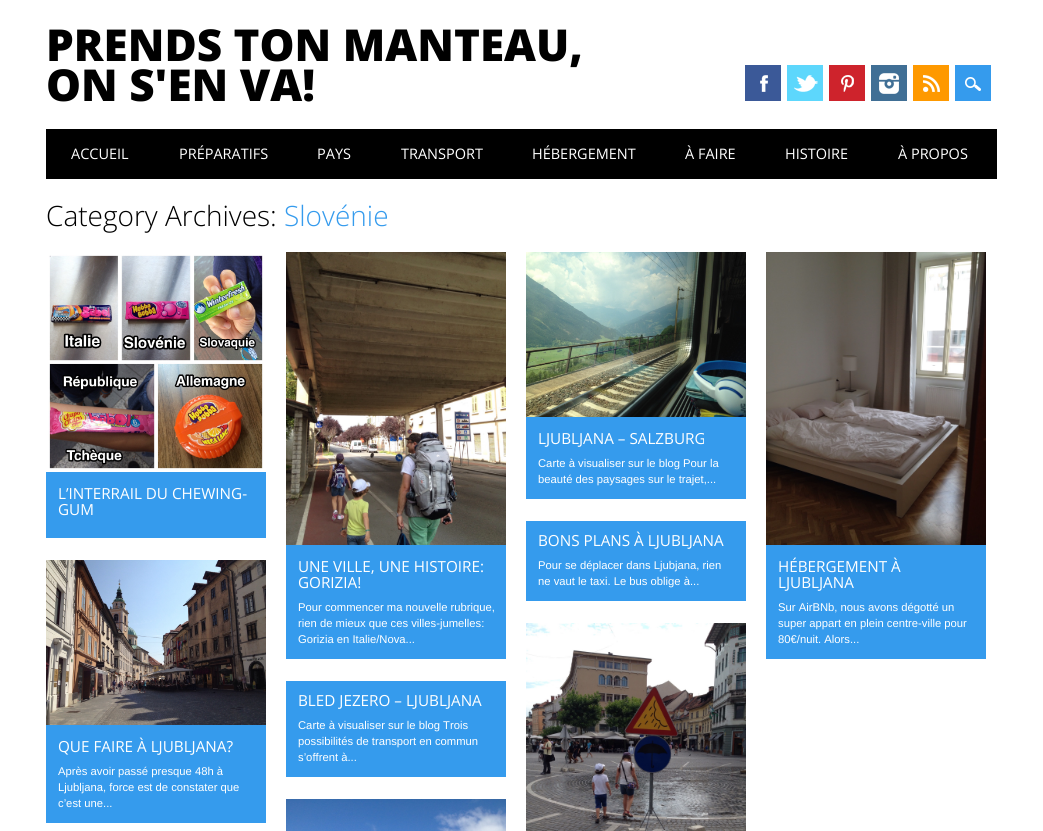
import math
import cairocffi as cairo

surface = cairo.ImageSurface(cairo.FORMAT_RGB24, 1043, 831)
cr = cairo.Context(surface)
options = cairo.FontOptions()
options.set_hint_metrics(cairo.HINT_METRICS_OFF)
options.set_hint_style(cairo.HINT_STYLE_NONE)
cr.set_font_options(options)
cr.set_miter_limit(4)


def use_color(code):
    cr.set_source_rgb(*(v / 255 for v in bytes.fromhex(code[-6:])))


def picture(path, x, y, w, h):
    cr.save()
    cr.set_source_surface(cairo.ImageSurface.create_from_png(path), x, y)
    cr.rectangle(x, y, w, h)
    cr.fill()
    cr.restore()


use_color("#ffffff")
cr.paint()
cr.select_font_face("Open Sans ExtraBold")
cr.set_font_size(44)
use_color("#000000")
cr.move_to(46, 61)
cr.show_text("PRENDS TON MANTEAU,")
cr.move_to(46, 101)
cr.show_text("ON S'EN VA!")
use_color("#3b5998")
cr.rectangle(745, 65, 36, 36)
cr.fill()
picture("img1.png", 760, 75, 8, 17)
use_color("#5dd7fc")
cr.rectangle(787, 65, 36, 36)
cr.fill()
picture("img2.png", 794, 75, 24, 17)
use_color("#ce232c")
cr.rectangle(829, 65, 36, 36)
cr.fill()
picture("img3.png", 841, 75, 13, 17)
use_color("#406f95")
cr.rectangle(871, 65, 36, 36)
cr.fill()
picture("img4.png", 879, 73, 20, 21)
use_color("#fe9900")
cr.rectangle(913, 65, 36, 36)
cr.fill()
picture("img5.png", 923, 75, 17, 17)
use_color("#359bed")
cr.rectangle(955, 65, 36, 36)
cr.fill()
picture("img6.png", 965, 77, 16, 14)
use_color("#000000")
cr.rectangle(46, 129, 951, 50)
cr.fill()
cr.select_font_face("Open Sans")
cr.set_font_size(14.5)
use_color("#ffffff")
cr.move_to(71, 159)
cr.show_text("ACCUEIL")
cr.move_to(179, 159)
cr.show_text("PRÉPARATIFS")
cr.move_to(317, 159)
cr.show_text("PAYS")
cr.move_to(401, 159)
cr.show_text("TRANSPORT")
cr.move_to(532, 159)
cr.show_text("HÉBERGEMENT")
cr.move_to(685, 159)
cr.show_text("À FAIRE")
cr.move_to(785, 159)
cr.show_text("HISTOIRE")
cr.move_to(898, 159)
cr.show_text("À PROPOS")
cr.select_font_face("Open Sans Light")
cr.set_font_size(28)
use_color("#000000")
cr.move_to(46, 226)
cr.show_text("Category Archives:")
use_color("#359bed")
cr.move_to(284, 226)
cr.show_text("Slovénie")
cr.rectangle(526, 417, 220, 82)
cr.fill()
picture("img7.png", 526, 252, 220, 165)
cr.select_font_face("Open Sans")
cr.set_font_size(15.25)
use_color("#ffffff")
cr.move_to(538, 444)
cr.show_text("LJUBLJANA – SALZBURG")
cr.select_font_face("Liberation Sans")
cr.set_font_size(11.25)
cr.move_to(538, 467)
cr.show_text("Carte à visualiser sur le blog Pour la")
cr.move_to(538, 483)
cr.show_text("beauté des paysages sur le trajet,...")
use_color("#359bed")
cr.rectangle(46, 472, 220, 66)
cr.fill()
picture("img8.png", 46, 252, 220, 220)
cr.select_font_face("Open Sans")
cr.set_font_size(15.25)
use_color("#ffffff")
cr.move_to(58, 499)
cr.show_text("L’INTERRAIL DU CHEWING-")
cr.move_to(58, 515)
cr.show_text("GUM")
use_color("#359bed")
cr.rectangle(286, 545, 220, 114)
cr.fill()
picture("img9.png", 286, 252, 220, 293)
use_color("#ffffff")
cr.move_to(298, 572)
cr.show_text("UNE VILLE, UNE HISTOIRE:")
cr.move_to(298, 588)
cr.show_text("GORIZIA!")
cr.select_font_face("Liberation Sans")
cr.set_font_size(11.25)
cr.move_to(298, 611)
cr.show_text("Pour commencer ma nouvelle rubrique,")
cr.move_to(298, 627)
cr.show_text("rien de mieux que ces villes-jumelles:")
cr.move_to(298, 643)
cr.show_text("Gorizia en Italie/Nova...")
use_color("#359bed")
cr.rectangle(526, 521, 220, 80)
cr.fill()
cr.select_font_face("Open Sans")
cr.set_font_size(15.25)
use_color("#ffffff")
cr.move_to(538, 546)
cr.show_text("BONS PLANS À LJUBLJANA")
cr.select_font_face("Liberation Sans")
cr.set_font_size(11.25)
cr.move_to(538, 569)
cr.show_text("Pour se déplacer dans Ljubjana, rien")
cr.move_to(538, 585)
cr.show_text("ne vaut le taxi. Le bus oblige à...")
use_color("#359bed")
cr.rectangle(766, 545, 220, 114)
cr.fill()
picture("img10.png", 766, 252, 220, 293)
cr.select_font_face("Open Sans")
cr.set_font_size(15.25)
use_color("#ffffff")
cr.move_to(778, 572)
cr.show_text("HÉBERGEMENT À")
cr.move_to(778, 588)
cr.show_text("LJUBLJANA")
cr.select_font_face("Liberation Sans")
cr.set_font_size(11.25)
cr.move_to(778, 611)
cr.show_text("Sur AirBNb, nous avons dégotté un")
cr.move_to(778, 627)
cr.show_text("super appart en plein centre-ville pour")
cr.move_to(778, 643)
cr.show_text("80€/nuit. Alors...")
use_color("#359bed")
cr.rectangle(286, 681, 220, 96)
cr.fill()
cr.select_font_face("Open Sans")
cr.set_font_size(15.25)
use_color("#ffffff")
cr.move_to(298, 706)
cr.show_text("BLED JEZERO – LJUBLJANA")
cr.select_font_face("Liberation Sans")
cr.set_font_size(11.25)
cr.move_to(298, 729)
cr.show_text("Carte à visualiser sur le blog Trois")
cr.move_to(298, 745)
cr.show_text("possibilités de transport en commun")
cr.move_to(298, 761)
cr.show_text("s’offrent à...")
picture("img11.png", 526, 623, 220, 208)
use_color("#359bed")
cr.rectangle(46, 725, 220, 98)
cr.fill()
picture("img12.png", 46, 560, 220, 165)
cr.select_font_face("Open Sans")
cr.set_font_size(15.25)
use_color("#ffffff")
cr.move_to(58, 752)
cr.show_text("QUE FAIRE À LJUBLJANA?")
cr.select_font_face("Liberation Sans")
cr.set_font_size(11.25)
cr.move_to(58, 775)
cr.show_text("Après avoir passé presque 48h à")
cr.move_to(58, 791)
cr.show_text("Ljubljana, force est de constater que")
cr.move_to(58, 807)
cr.show_text("c’est une...")
picture("img13.png", 286, 799, 220, 32)
surface.write_to_png("result.png")
